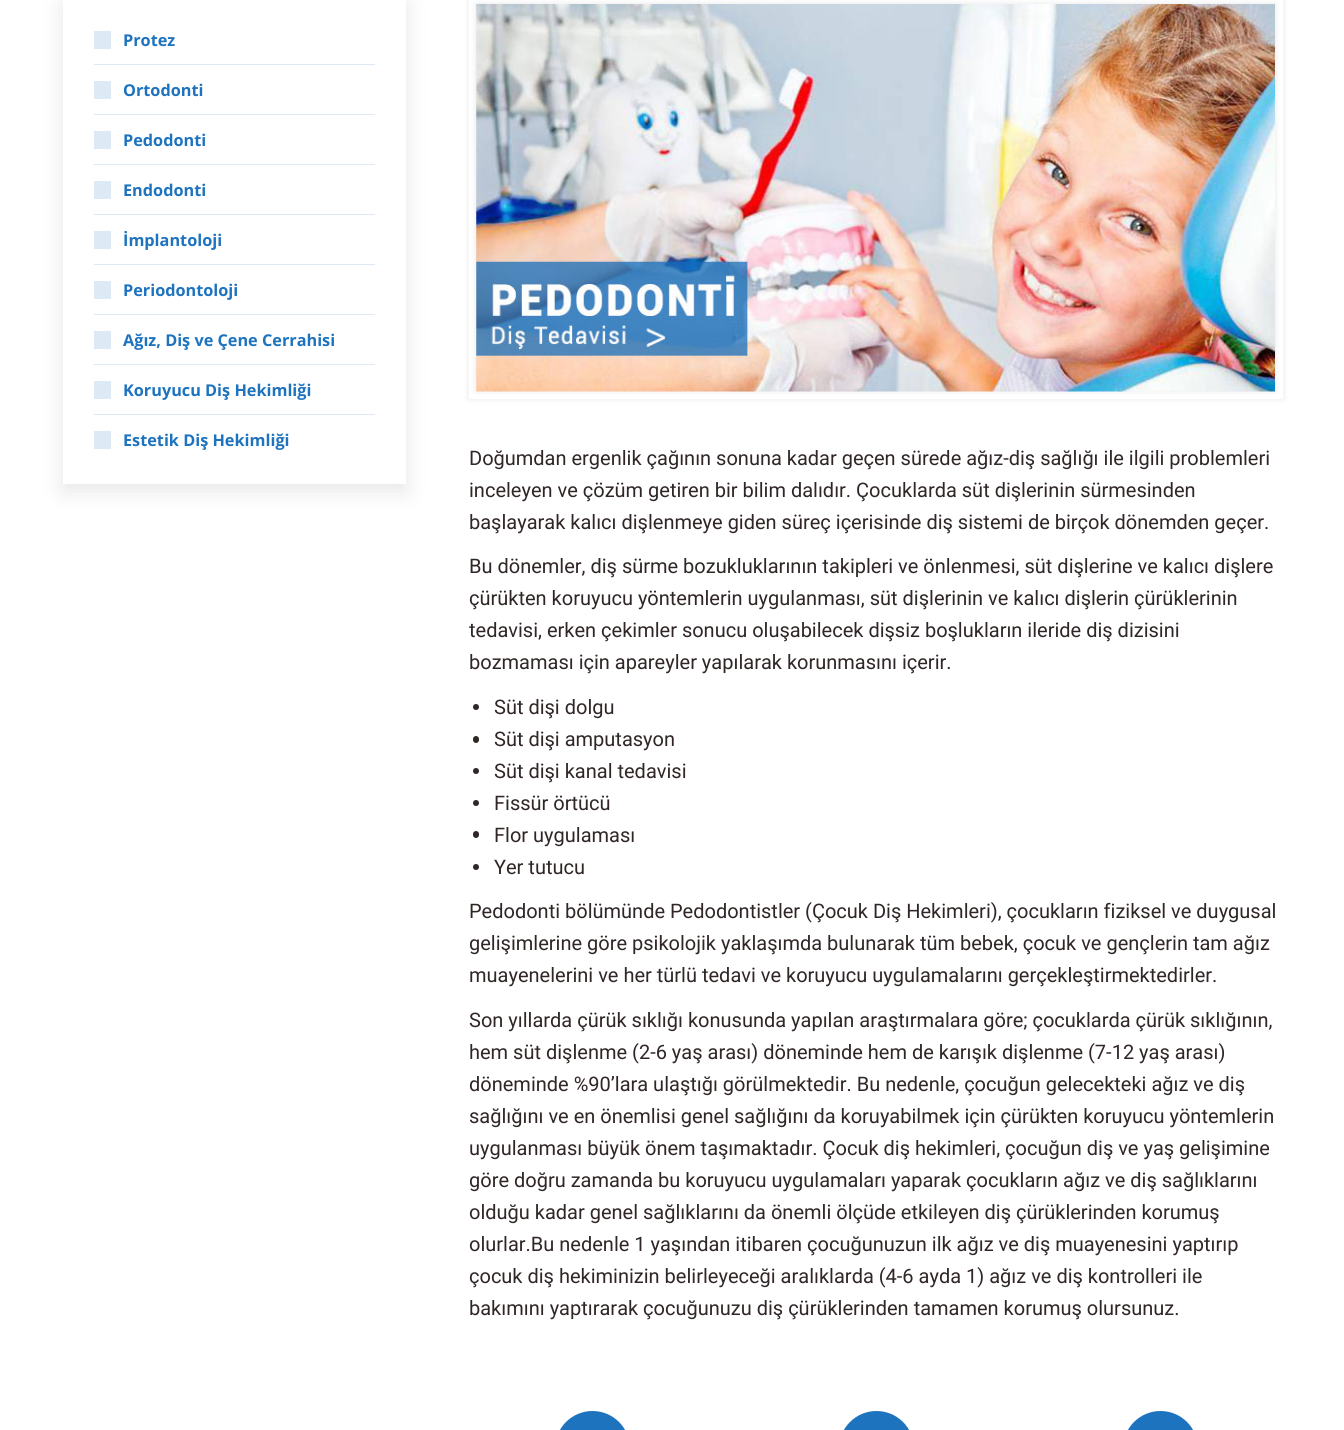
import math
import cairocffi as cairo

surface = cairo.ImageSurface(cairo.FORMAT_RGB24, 1344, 1430)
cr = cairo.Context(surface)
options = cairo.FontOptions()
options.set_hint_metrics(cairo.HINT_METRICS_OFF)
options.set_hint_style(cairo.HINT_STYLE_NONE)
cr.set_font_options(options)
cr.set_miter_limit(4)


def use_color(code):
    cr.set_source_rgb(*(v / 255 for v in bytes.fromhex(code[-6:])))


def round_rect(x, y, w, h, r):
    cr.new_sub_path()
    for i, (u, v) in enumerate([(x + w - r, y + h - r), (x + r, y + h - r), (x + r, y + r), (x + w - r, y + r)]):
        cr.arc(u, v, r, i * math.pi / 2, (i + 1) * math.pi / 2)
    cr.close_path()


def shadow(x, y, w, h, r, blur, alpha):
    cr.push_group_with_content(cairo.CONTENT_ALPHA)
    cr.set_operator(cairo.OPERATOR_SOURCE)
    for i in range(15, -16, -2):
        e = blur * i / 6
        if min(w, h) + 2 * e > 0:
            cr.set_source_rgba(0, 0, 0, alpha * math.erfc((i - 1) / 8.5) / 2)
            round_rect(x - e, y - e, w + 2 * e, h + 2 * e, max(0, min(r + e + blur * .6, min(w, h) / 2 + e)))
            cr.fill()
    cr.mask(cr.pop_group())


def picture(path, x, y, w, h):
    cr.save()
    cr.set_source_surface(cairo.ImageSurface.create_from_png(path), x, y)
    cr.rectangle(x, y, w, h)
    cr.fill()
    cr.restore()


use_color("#ffffff")
cr.paint()
use_color("#000000")
shadow(63, 4, 343, 487, 0, 11, 0.1)
use_color("#ffffff")
cr.rectangle(63, 0, 343, 484)
cr.fill()
use_color("#ddeaf5")
cr.rectangle(94, 31, 17, 18)
cr.fill()
cr.select_font_face("Open Sans", cairo.FONT_SLANT_NORMAL, cairo.FONT_WEIGHT_BOLD)
cr.set_font_size(16.25)
use_color("#1e73be")
cr.move_to(123, 46)
cr.show_text("Protez")
use_color("#ddeaf5")
cr.rectangle(94, 64, 281, 1)
cr.fill()
cr.rectangle(94, 81, 17, 18)
cr.fill()
use_color("#1e73be")
cr.move_to(123, 96)
cr.show_text("Ortodonti")
use_color("#ddeaf5")
cr.rectangle(94, 114, 281, 1)
cr.fill()
cr.rectangle(94, 131, 17, 18)
cr.fill()
use_color("#1e73be")
cr.move_to(123, 146)
cr.show_text("Pedodonti")
use_color("#ddeaf5")
cr.rectangle(94, 164, 281, 1)
cr.fill()
cr.rectangle(94, 181, 17, 18)
cr.fill()
use_color("#1e73be")
cr.move_to(123, 196)
cr.show_text("Endodonti")
use_color("#ddeaf5")
cr.rectangle(94, 214, 281, 1)
cr.fill()
cr.rectangle(94, 231, 17, 18)
cr.fill()
use_color("#1e73be")
cr.move_to(123, 246)
cr.show_text("İmplantoloji")
use_color("#ddeaf5")
cr.rectangle(94, 264, 281, 1)
cr.fill()
cr.rectangle(94, 281, 17, 18)
cr.fill()
use_color("#1e73be")
cr.move_to(123, 296)
cr.show_text("Periodontoloji")
use_color("#ddeaf5")
cr.rectangle(94, 314, 281, 1)
cr.fill()
cr.rectangle(94, 331, 17, 18)
cr.fill()
use_color("#1e73be")
cr.move_to(123, 346)
cr.show_text("Ağız, Diş ve Çene Cerrahisi")
use_color("#ddeaf5")
cr.rectangle(94, 364, 281, 1)
cr.fill()
cr.rectangle(94, 381, 17, 18)
cr.fill()
use_color("#1e73be")
cr.move_to(123, 396)
cr.show_text("Koruyucu Diş Hekimliği")
use_color("#ddeaf5")
cr.rectangle(94, 414, 281, 1)
cr.fill()
cr.rectangle(94, 431, 17, 18)
cr.fill()
use_color("#1e73be")
cr.move_to(123, 446)
cr.show_text("Estetik Diş Hekimliği")
cr.save()
cr.set_fill_rule(cairo.FILL_RULE_EVEN_ODD)
cr.new_path()
cr.move_to(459, 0)
cr.line_to(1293, 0)
cr.line_to(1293, 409)
cr.line_to(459, 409)
cr.close_path()
cr.move_to(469, -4)
cr.line_to(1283, -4)
cr.line_to(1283, 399)
cr.line_to(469, 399)
cr.close_path()
cr.clip()
use_color("#000000")
shadow(469, -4, 814, 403, 0, 3, 0.1)
cr.restore()
use_color("#000000")
shadow(476, 4, 799, 387, 0, 3, 0.1)
picture("img1.png", 476, 4, 799, 388)
cr.select_font_face("Roboto")
cr.set_font_size(20)
use_color("#302626")
cr.move_to(469, 465)
cr.show_text("Doğumdan ergenlik çağının sonuna kadar geçen sürede ağız-diş sağlığı ile ilgili problemleri")
cr.move_to(469, 497)
cr.show_text("inceleyen ve çözüm getiren bir bilim dalıdır. Çocuklarda süt dişlerinin sürmesinden")
cr.move_to(469, 529)
cr.show_text("başlayarak kalıcı dişlenmeye giden süreç içerisinde diş sistemi de birçok dönemden geçer.")
cr.move_to(469, 573)
cr.show_text("Bu dönemler, diş sürme bozukluklarının takipleri ve önlenmesi, süt dişlerine ve kalıcı dişlere")
cr.move_to(469, 605)
cr.show_text("çürükten koruyucu yöntemlerin uygulanması, süt dişlerinin ve kalıcı dişlerin çürüklerinin")
cr.move_to(469, 637)
cr.show_text("tedavisi, erken çekimler sonucu oluşabilecek dişsiz boşlukların ileride diş dizisini")
cr.move_to(469, 669)
cr.show_text("bozmaması için apareyler yapılarak korunmasını içerir.")
cr.new_path()
cr.arc(476, 707, 3, 0, 2 * math.pi)
cr.fill()
cr.move_to(494, 714)
cr.show_text("Süt dişi dolgu")
round_rect(473, 736, 6, 7, 3)
cr.fill()
cr.move_to(494, 746)
cr.show_text("Süt dişi amputasyon")
cr.new_path()
cr.arc(476, 771, 3, 0, 2 * math.pi)
cr.fill()
cr.move_to(494, 778)
cr.show_text("Süt dişi kanal tedavisi")
cr.new_path()
cr.arc(476, 803, 3, 0, 2 * math.pi)
cr.fill()
cr.move_to(494, 810)
cr.show_text("Fissür örtücü")
round_rect(473, 831, 6, 7, 3)
cr.fill()
cr.move_to(494, 842)
cr.show_text("Flor uygulaması")
cr.new_path()
cr.arc(476, 867, 3, 0, 2 * math.pi)
cr.fill()
cr.move_to(494, 874)
cr.show_text("Yer tutucu")
cr.move_to(469, 918)
cr.show_text("Pedodonti bölümünde Pedodontistler (Çocuk Diş Hekimleri), çocukların fiziksel ve duygusal")
cr.move_to(469, 950)
cr.show_text("gelişimlerine göre psikolojik yaklaşımda bulunarak tüm bebek, çocuk ve gençlerin tam ağız")
cr.move_to(469, 982)
cr.show_text("muayenelerini ve her türlü tedavi ve koruyucu uygulamalarını gerçekleştirmektedirler.")
cr.move_to(469, 1027)
cr.show_text("Son yıllarda çürük sıklığı konusunda yapılan araştırmalara göre; çocuklarda çürük sıklığının,")
cr.move_to(469, 1059)
cr.show_text("hem süt dişlenme (2-6 yaş arası) döneminde hem de karışık dişlenme (7-12 yaş arası)")
cr.move_to(469, 1091)
cr.show_text("döneminde %90’lara ulaştığı görülmektedir. Bu nedenle, çocuğun gelecekteki ağız ve diş")
cr.move_to(469, 1123)
cr.show_text("sağlığını ve en önemlisi genel sağlığını da koruyabilmek için çürükten koruyucu yöntemlerin")
cr.move_to(469, 1155)
cr.show_text("uygulanması büyük önem taşımaktadır. Çocuk diş hekimleri, çocuğun diş ve yaş gelişimine")
cr.move_to(469, 1187)
cr.show_text("göre doğru zamanda bu koruyucu uygulamaları yaparak çocukların ağız ve diş sağlıklarını")
cr.move_to(469, 1219)
cr.show_text("olduğu kadar genel sağlıklarını da önemli ölçüde etkileyen diş çürüklerinden korumuş")
cr.move_to(469, 1251)
cr.show_text("olurlar.Bu nedenle 1 yaşından itibaren çocuğunuzun ilk ağız ve diş muayenesini yaptırıp")
cr.move_to(469, 1283)
cr.show_text("çocuk diş hekiminizin belirleyeceği aralıklarda (4-6 ayda 1) ağız ve diş kontrolleri ile")
cr.move_to(469, 1315)
cr.show_text("bakımını yaptırarak çocuğunuzu diş çürüklerinden tamamen korumuş olursunuz.")
use_color("#1e73be")
round_rect(555, 1411, 75, 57, 37.5)
cr.fill()
round_rect(839, 1411, 75, 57, 37.5)
cr.fill()
round_rect(1123, 1411, 75, 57, 37.5)
cr.fill()
surface.write_to_png("result.png")
